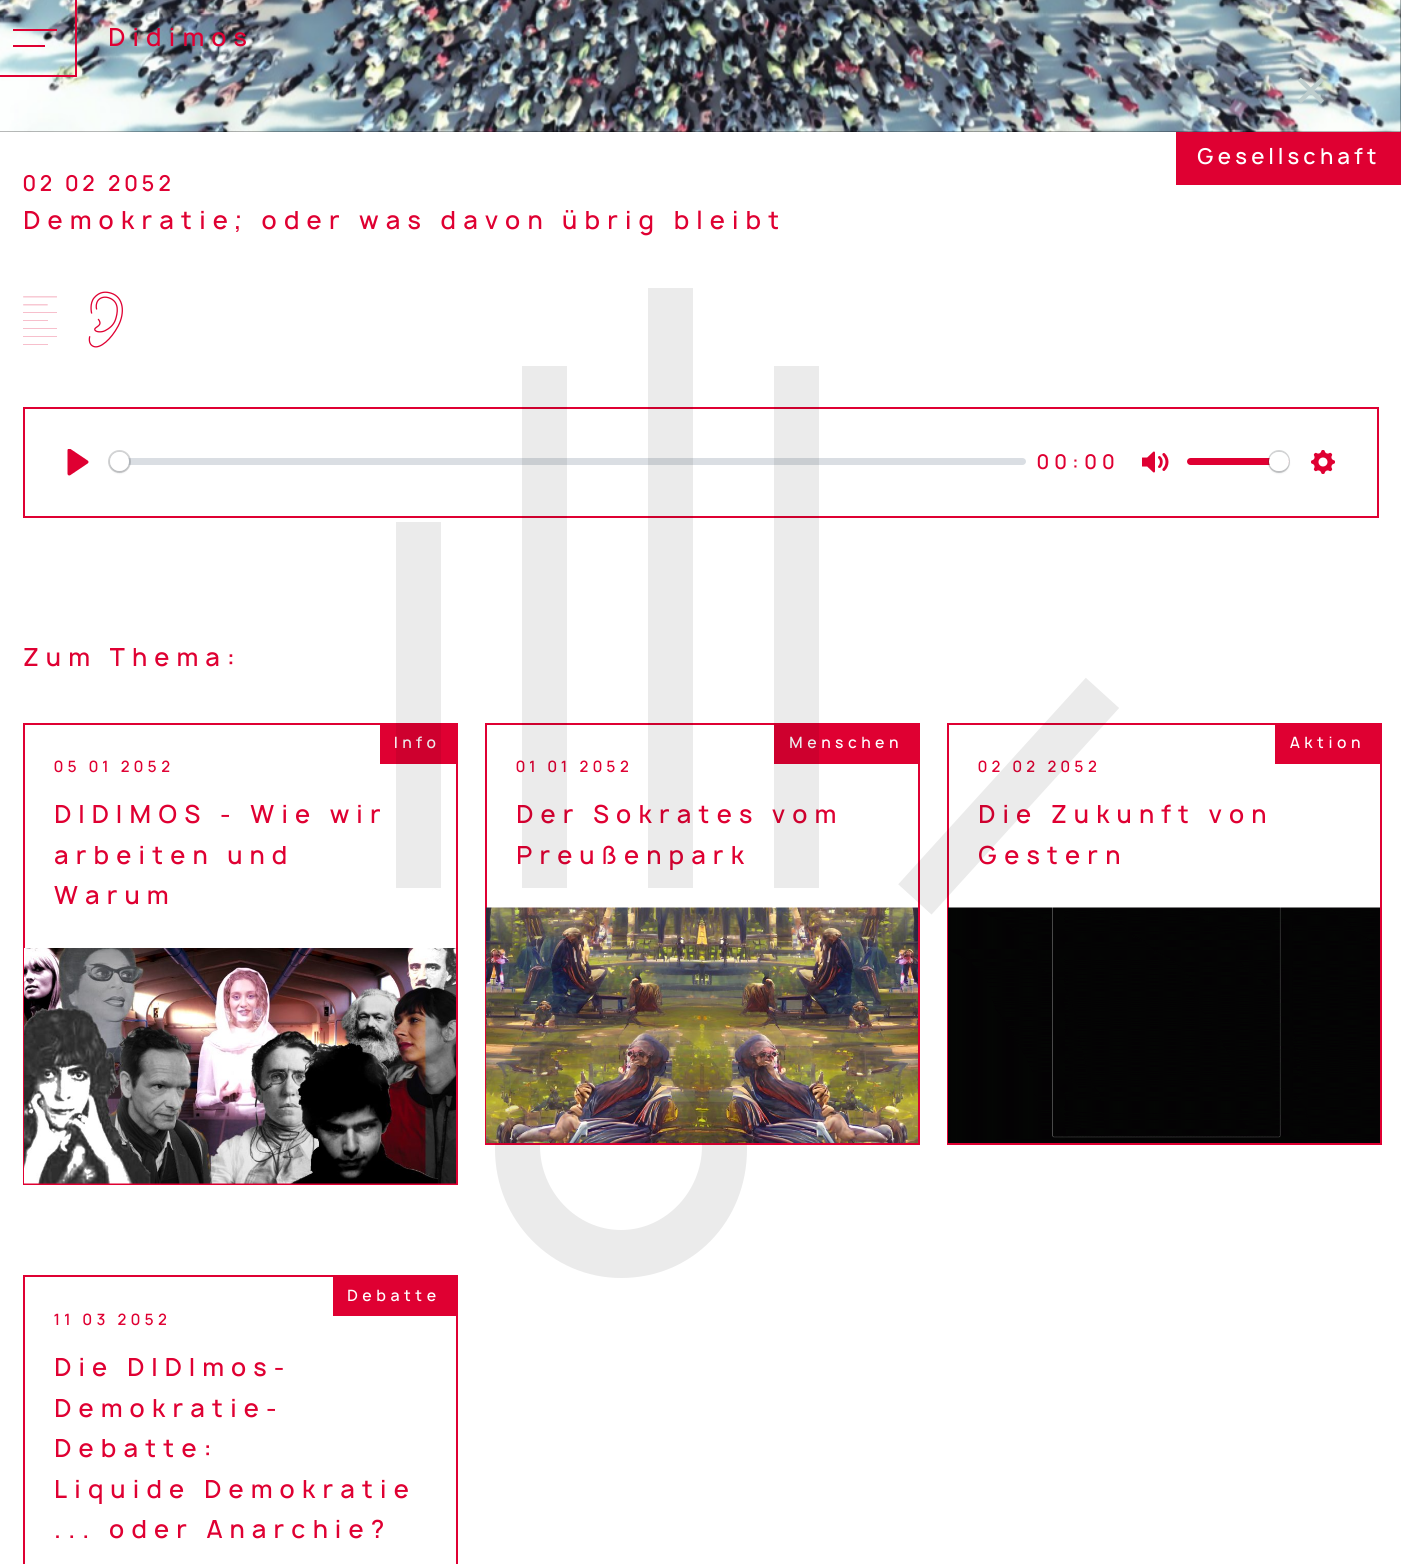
import math
import cairocffi as cairo

surface = cairo.ImageSurface(cairo.FORMAT_RGB24, 1401, 1564)
cr = cairo.Context(surface)
options = cairo.FontOptions()
options.set_hint_metrics(cairo.HINT_METRICS_OFF)
options.set_hint_style(cairo.HINT_STYLE_NONE)
cr.set_font_options(options)
cr.set_miter_limit(4)


def use_color(code):
    cr.set_source_rgb(*(v / 255 for v in bytes.fromhex(code[-6:])))


def spaced_text(x, y, s, letter, word):
    cr.move_to(x, y)
    for ch in s:
        cr.show_text(ch)
        cr.rel_move_to(letter + word * (ch == ' '), 0)


def round_rect(x, y, w, h, r):
    cr.new_sub_path()
    for i, (u, v) in enumerate([(x + w - r, y + h - r), (x + r, y + h - r), (x + r, y + r), (x + w - r, y + r)]):
        cr.arc(u, v, r, i * math.pi / 2, (i + 1) * math.pi / 2)
    cr.close_path()


def shadow(x, y, w, h, r, blur, alpha):
    cr.push_group_with_content(cairo.CONTENT_ALPHA)
    cr.set_operator(cairo.OPERATOR_SOURCE)
    for i in range(15, -16, -2):
        e = blur * i / 6
        if min(w, h) + 2 * e > 0:
            cr.set_source_rgba(0, 0, 0, alpha * math.erfc((i - 1) / 8.5) / 2)
            round_rect(x - e, y - e, w + 2 * e, h + 2 * e, max(0, min(r + e + blur * .6, min(w, h) / 2 + e)))
            cr.fill()
    cr.mask(cr.pop_group())


def picture(path, x, y, w, h):
    cr.save()
    cr.set_source_surface(cairo.ImageSurface.create_from_png(path), x, y)
    cr.rectangle(x, y, w, h)
    cr.fill()
    cr.restore()


use_color("#ffffff")
cr.paint()
use_color("#000000")
cr.rectangle(0, 0, 1401, 132)
cr.fill()
picture("img1.png", 0, 0, 1401, 132)
use_color("#df0032")
cr.rectangle(75, 0, 2, 77)
cr.fill()
cr.rectangle(0, 75, 77, 2)
cr.fill()
cr.rectangle(13, 29, 44, 2)
cr.fill()
cr.rectangle(13, 45, 32, 2)
cr.fill()
cr.select_font_face("Manrope Medium")
cr.set_font_size(24)
spaced_text(108, 46, "Didimos", 7.2, 0)
cr.select_font_face("DejaVu Sans")
cr.set_font_size(45)
use_color("#becdcd")
spaced_text(1292, 107, "✕", 14, 0)
use_color("#df0032")
cr.rectangle(1176, 132, 225, 53)
cr.fill()
cr.select_font_face("Manrope Medium")
cr.set_font_size(21)
use_color("#ffffff")
spaced_text(1197, 164, "Gesellschaft", 4.25, 0)
use_color("#df0032")
spaced_text(23, 191, "02 02 2052", 4.25, 0)
cr.set_font_size(24)
spaced_text(23, 229, "Demokratie; oder was davon übrig bleibt", 7.2, 0)
picture("img2.png", 23, 296, 34, 49)
picture("img3.png", 88, 291, 35, 57)
cr.rectangle(24, 408, 1354, 109)
cr.stroke()
picture("img4.png", 67, 449, 22, 27)
cr.set_source_rgba(0.757, 0.784, 0.82, 0.6)
round_rect(110, 458, 916, 7, 3.5)
cr.fill()
cr.arc(119.5, 461.5, 10.5, 0, 2 * math.pi)
cr.set_source_rgba(0.137, 0.157, 0.184, 0.2)
cr.stroke()
use_color("#23282f")
shadow(110, 453, 19, 20, 9.5, 1, 0.15)
use_color("#ffffff")
cr.arc(119.5, 461.5, 9.5, 0, 2 * math.pi)
cr.fill()
cr.set_font_size(19.5)
use_color("#df0032")
spaced_text(1037, 469, "00:00", 6, 0)
picture("img5.png", 1142, 451, 27, 22)
round_rect(1187, 458, 102, 7, 3.5)
cr.fill()
round_rect(1269, 451, 20, 21, 10)
cr.set_source_rgba(0.137, 0.157, 0.184, 0.2)
cr.stroke()
use_color("#23282f")
shadow(1269, 453, 20, 20, 10, 1, 0.15)
use_color("#ffffff")
round_rect(1269, 452, 20, 19, 9.5)
cr.fill()
picture("img6.png", 1311, 450, 24, 24)
cr.set_font_size(24)
use_color("#df0032")
spaced_text(23, 666, "Zum Thema:", 7.2, 0)
cr.rectangle(24, 724, 433, 460)
cr.stroke()
cr.rectangle(380, 725, 76, 39)
cr.fill()
cr.set_font_size(15)
use_color("#ffffff")
spaced_text(394, 748, "Info", 4.5, 0)
use_color("#df0032")
spaced_text(54, 772, "05 01 2052", 4.5, 0)
cr.set_font_size(24)
spaced_text(54, 823, "DIDIMOS - Wie wir", 7.2, 0)
spaced_text(54, 864, "arbeiten und", 7.2, 0)
spaced_text(54, 904, "Warum", 7.2, 0)
picture("img7.png", 24, 948, 432, 236)
cr.rectangle(486, 724, 433, 420)
cr.stroke()
cr.rectangle(774, 725, 144, 39)
cr.fill()
cr.set_font_size(15)
use_color("#ffffff")
spaced_text(789, 748, "Menschen", 4.5, 0)
use_color("#df0032")
spaced_text(516, 772, "01 01 2052", 4.5, 0)
cr.set_font_size(24)
spaced_text(516, 823, "Der Sokrates vom", 7.2, 0)
spaced_text(516, 864, "Preußenpark", 7.2, 0)
picture("img8.png", 486, 907, 432, 236)
cr.rectangle(948, 724, 433, 420)
cr.stroke()
cr.rectangle(1275, 725, 105, 39)
cr.fill()
cr.set_font_size(15)
use_color("#ffffff")
spaced_text(1290, 748, "Aktion", 4.5, 0)
use_color("#df0032")
spaced_text(978, 772, "02 02 2052", 4.5, 0)
cr.set_font_size(24)
spaced_text(978, 823, "Die Zukunft von", 7.2, 0)
spaced_text(978, 864, "Gestern", 7.2, 0)
picture("img9.png", 948, 907, 432, 236)
cr.rectangle(24, 1276, 433, 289)
cr.stroke()
cr.rectangle(333, 1277, 123, 39)
cr.fill()
cr.set_font_size(15)
use_color("#ffffff")
spaced_text(347, 1301, "Debatte", 4.5, 0)
use_color("#df0032")
spaced_text(54, 1325, "11 03 2052", 4.5, 0)
cr.set_font_size(24)
spaced_text(54, 1376, "Die DIDImos-", 7.2, 0)
spaced_text(54, 1417, "Demokratie-", 7.2, 0)
spaced_text(54, 1457, "Debatte:", 7.2, 0)
spaced_text(54, 1498, "Liquide Demokratie", 7.2, 0)
spaced_text(54, 1538, "... oder Anarchie?", 7.2, 0)
picture("img10.png", 396, 288, 723, 990)
surface.write_to_png("result.png")
